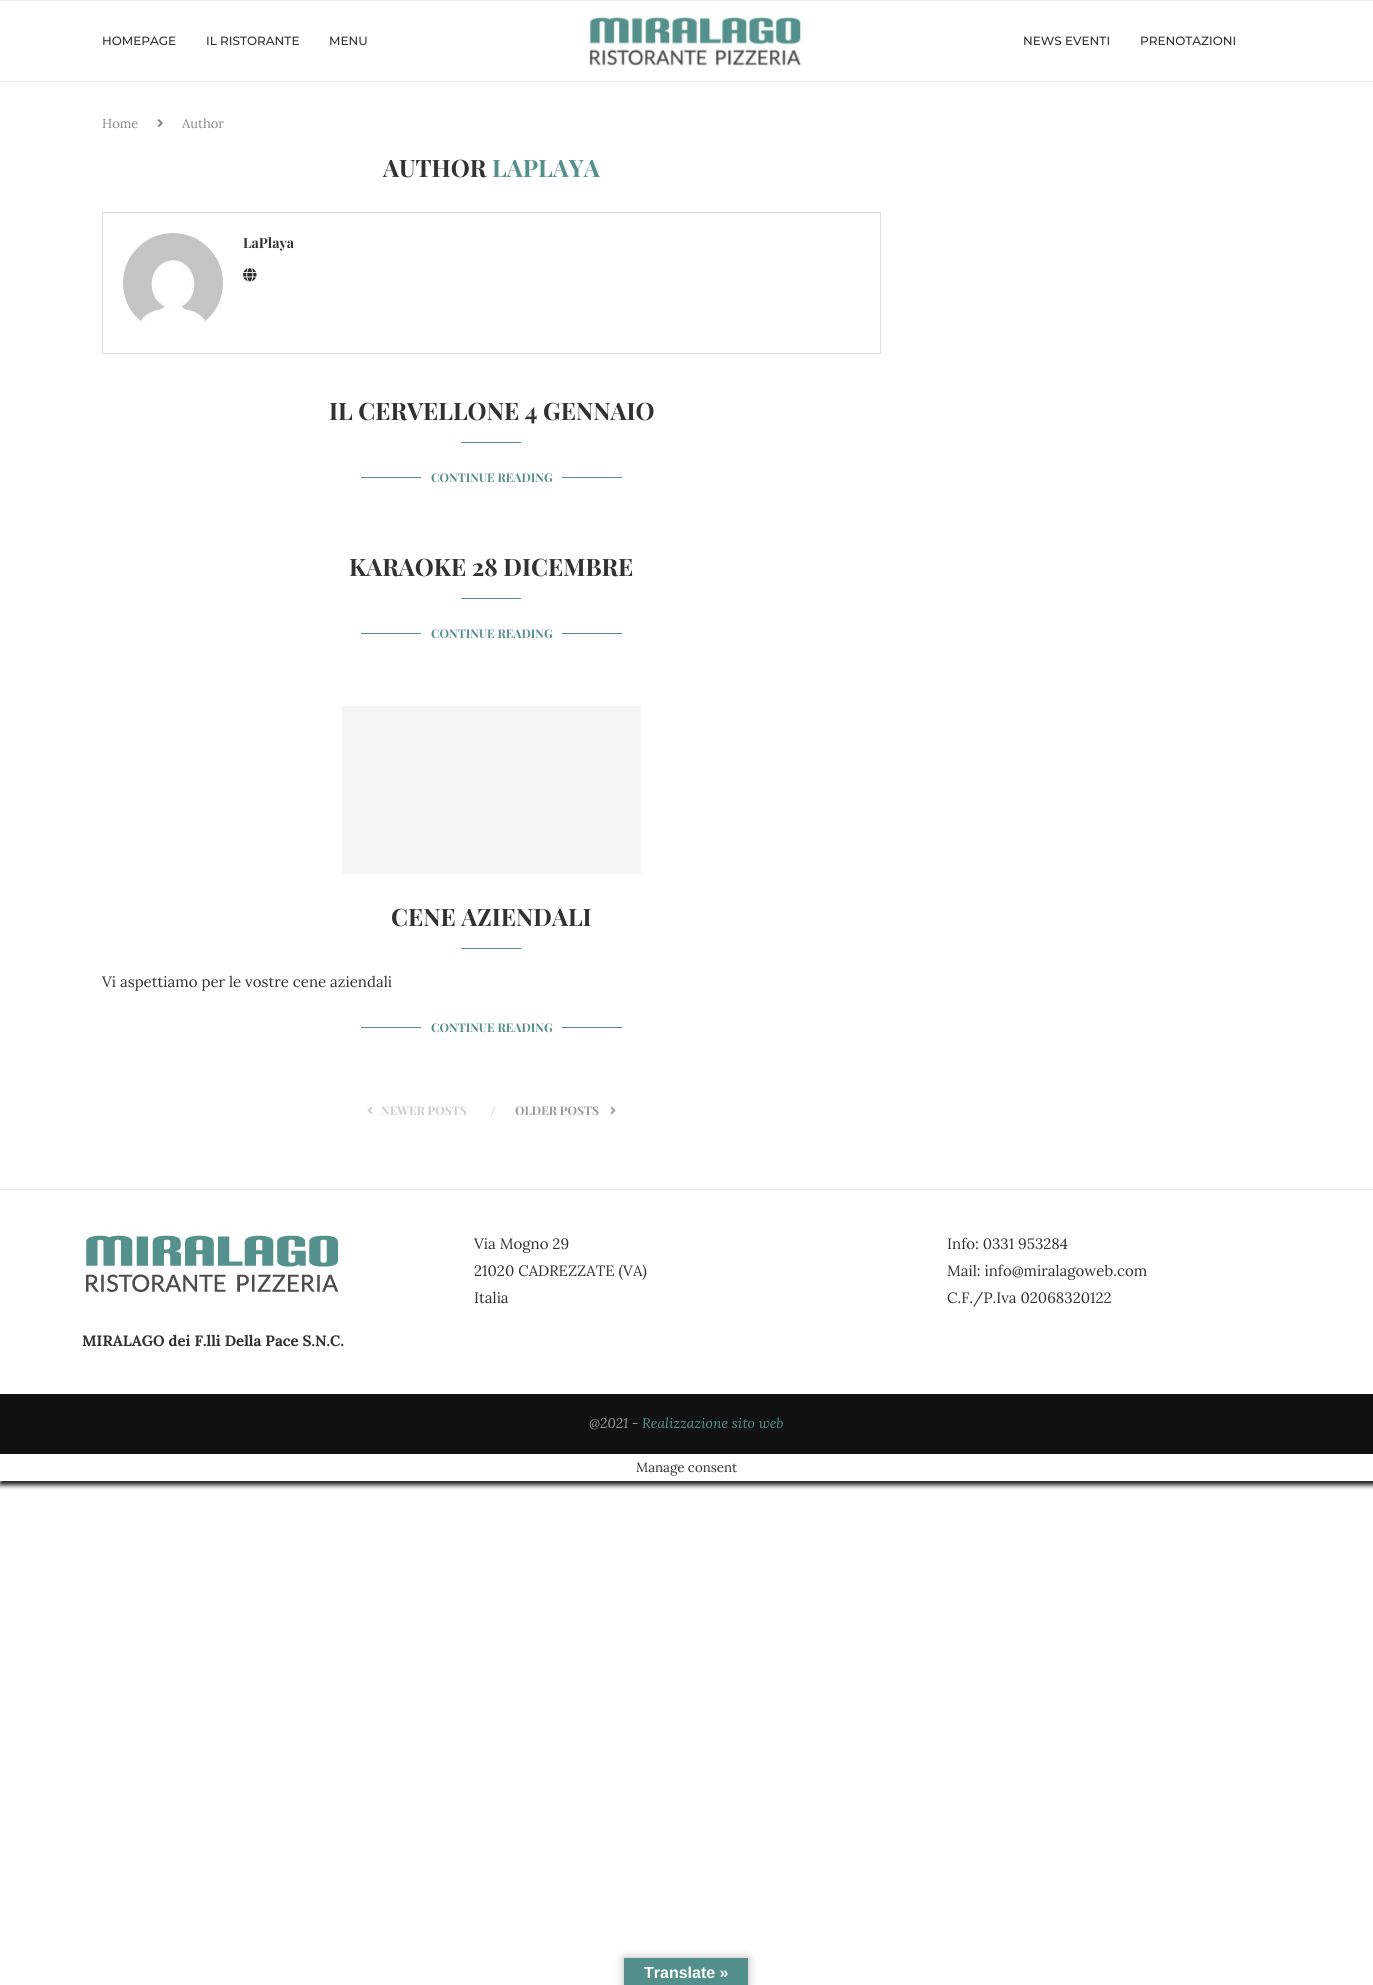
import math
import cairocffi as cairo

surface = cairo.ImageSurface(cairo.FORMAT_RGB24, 1373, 1985)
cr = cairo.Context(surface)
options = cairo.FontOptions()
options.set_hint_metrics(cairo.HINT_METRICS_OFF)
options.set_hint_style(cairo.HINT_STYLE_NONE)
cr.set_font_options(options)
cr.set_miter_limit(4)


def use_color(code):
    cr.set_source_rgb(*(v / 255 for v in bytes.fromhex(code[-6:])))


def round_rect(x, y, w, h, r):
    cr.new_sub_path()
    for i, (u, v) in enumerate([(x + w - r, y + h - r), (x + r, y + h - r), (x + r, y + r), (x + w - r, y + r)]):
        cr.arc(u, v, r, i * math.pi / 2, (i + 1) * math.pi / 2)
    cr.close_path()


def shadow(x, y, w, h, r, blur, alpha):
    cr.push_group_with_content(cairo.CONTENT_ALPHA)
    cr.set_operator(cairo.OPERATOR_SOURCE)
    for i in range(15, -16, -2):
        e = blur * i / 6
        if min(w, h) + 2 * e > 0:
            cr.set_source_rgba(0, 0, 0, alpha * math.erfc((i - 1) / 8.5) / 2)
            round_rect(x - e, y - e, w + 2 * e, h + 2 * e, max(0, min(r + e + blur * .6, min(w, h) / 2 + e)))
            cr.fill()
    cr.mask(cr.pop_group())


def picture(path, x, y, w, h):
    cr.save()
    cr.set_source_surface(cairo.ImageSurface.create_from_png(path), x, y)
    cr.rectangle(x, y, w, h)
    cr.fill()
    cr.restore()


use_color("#ffffff")
cr.paint()
use_color("#ececec")
cr.rectangle(0, 0, 1373, 1)
cr.fill()
cr.rectangle(0, 81, 1373, 1)
cr.fill()
cr.select_font_face("Montserrat Medium")
cr.set_font_size(12)
use_color("#313131")
cr.move_to(102, 45)
cr.show_text("HOMEPAGE")
cr.move_to(206, 45)
cr.show_text("IL RISTORANTE")
cr.move_to(329, 45)
cr.show_text("MENU")
picture("img1.png", 588, 14, 216, 52)
cr.move_to(1023, 45)
cr.show_text("NEWS EVENTI")
cr.move_to(1140, 45)
cr.show_text("PRENOTAZIONI")
cr.select_font_face("Lora")
cr.set_font_size(13)
use_color("#888888")
cr.move_to(102, 128)
cr.show_text("Home")
picture("img2.png", 157, 119, 6, 9)
cr.move_to(182, 128)
cr.show_text("Author")
cr.select_font_face("Playfair Display", cairo.FONT_SLANT_NORMAL, cairo.FONT_WEIGHT_BOLD)
cr.set_font_size(24)
use_color("#313131")
cr.move_to(383, 177)
cr.show_text("AUTHOR")
use_color("#53908b")
cr.move_to(492, 177)
cr.show_text("LAPLAYA")
cr.rectangle(102.5, 212.5, 778, 141)
use_color("#dedede")
cr.set_line_width(1)
cr.stroke()
picture("img3.png", 123, 233, 100, 88)
cr.set_font_size(14)
use_color("#313131")
cr.move_to(243, 248)
cr.show_text("LaPlaya")
picture("img4.png", 243, 268, 14, 14)
cr.set_font_size(24)
cr.move_to(329, 420)
cr.show_text("IL CERVELLONE 4 GENNAIO")
use_color("#53908b")
cr.rectangle(461, 442, 60, 1)
cr.fill()
cr.rectangle(361, 477, 60, 1)
cr.fill()
cr.set_font_size(12)
cr.move_to(431, 482)
cr.show_text("CONTINUE READING")
cr.rectangle(562, 477, 60, 1)
cr.fill()
cr.set_font_size(24)
use_color("#313131")
cr.move_to(349, 576)
cr.show_text("KARAOKE 28 DICEMBRE")
use_color("#53908b")
cr.rectangle(461, 598, 60, 1)
cr.fill()
cr.rectangle(361, 633, 60, 1)
cr.fill()
cr.set_font_size(12)
cr.move_to(431, 638)
cr.show_text("CONTINUE READING")
cr.rectangle(562, 633, 60, 1)
cr.fill()
use_color("#f5f5f5")
cr.rectangle(342, 706, 299, 168)
cr.fill()
cr.set_font_size(24)
use_color("#313131")
cr.move_to(391, 926)
cr.show_text("CENE AZIENDALI")
use_color("#53908b")
cr.rectangle(461, 948, 60, 1)
cr.fill()
cr.select_font_face("Lora")
cr.set_font_size(15)
use_color("#313131")
cr.move_to(102, 987)
cr.show_text("Vi aspettiamo per le vostre cene aziendali")
use_color("#53908b")
cr.rectangle(361, 1027, 60, 1)
cr.fill()
cr.select_font_face("Playfair Display", cairo.FONT_SLANT_NORMAL, cairo.FONT_WEIGHT_BOLD)
cr.set_font_size(12)
cr.move_to(431, 1032)
cr.show_text("CONTINUE READING")
cr.rectangle(562, 1027, 60, 1)
cr.fill()
picture("img5.png", 367, 1106, 6, 9)
use_color("#cccccc")
cr.move_to(381, 1115)
cr.show_text("NEWER POSTS")
cr.select_font_face("Playfair Display")
use_color("#999999")
cr.move_to(491, 1115)
cr.show_text("/")
cr.select_font_face("Playfair Display", cairo.FONT_SLANT_NORMAL, cairo.FONT_WEIGHT_BOLD)
cr.move_to(515, 1115)
cr.show_text("OLDER POSTS")
picture("img6.png", 610, 1106, 6, 9)
use_color("#ececec")
cr.rectangle(0, 1189, 1373, 1)
cr.fill()
cr.select_font_face("Lora")
cr.set_font_size(15)
use_color("#313131")
cr.move_to(474, 1249)
cr.show_text("Via Mogno 29")
cr.move_to(474, 1276)
cr.show_text("21020 CADREZZATE (VA)")
cr.move_to(474, 1303)
cr.show_text("Italia")
cr.move_to(947, 1249)
cr.show_text("Info: 0331 953284")
cr.move_to(947, 1276)
cr.show_text("Mail: info@miralagoweb.com")
cr.move_to(947, 1303)
cr.show_text("C.F./P.Iva 02068320122")
picture("img7.png", 81, 1230, 263, 63)
cr.select_font_face("Lora", cairo.FONT_SLANT_NORMAL, cairo.FONT_WEIGHT_BOLD)
cr.move_to(82, 1346)
cr.show_text("MIRALAGO dei F.lli Della Pace S.N.C.")
cr.save()
cr.rectangle(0, 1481, 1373, 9)
cr.clip()
use_color("#161616")
shadow(0, 1454, 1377, 31, 0, 2.5, 1)
cr.restore()
use_color("#111111")
cr.rectangle(0, 1394, 1373, 60)
cr.fill()
cr.select_font_face("Lora", cairo.FONT_SLANT_ITALIC)
cr.set_font_size(14)
use_color("#999999")
cr.move_to(589, 1428)
cr.show_text("@2021 -")
use_color("#53908b")
cr.move_to(642, 1428)
cr.show_text("Realizzazione sito web")
cr.select_font_face("Lora")
cr.set_font_size(13.25)
use_color("#313131")
cr.move_to(636, 1472)
cr.show_text("Manage consent")
use_color("#000000")
shadow(624, 1958, 124, 27, 0, 4.5, 0.3)
use_color("#53908b")
cr.rectangle(624, 1958, 124, 27)
cr.fill()
cr.select_font_face("Liberation Sans", cairo.FONT_SLANT_NORMAL, cairo.FONT_WEIGHT_BOLD)
cr.set_font_size(16)
use_color("#ffffff")
cr.move_to(644, 1978)
cr.show_text("Translate »")
surface.write_to_png("result.png")
